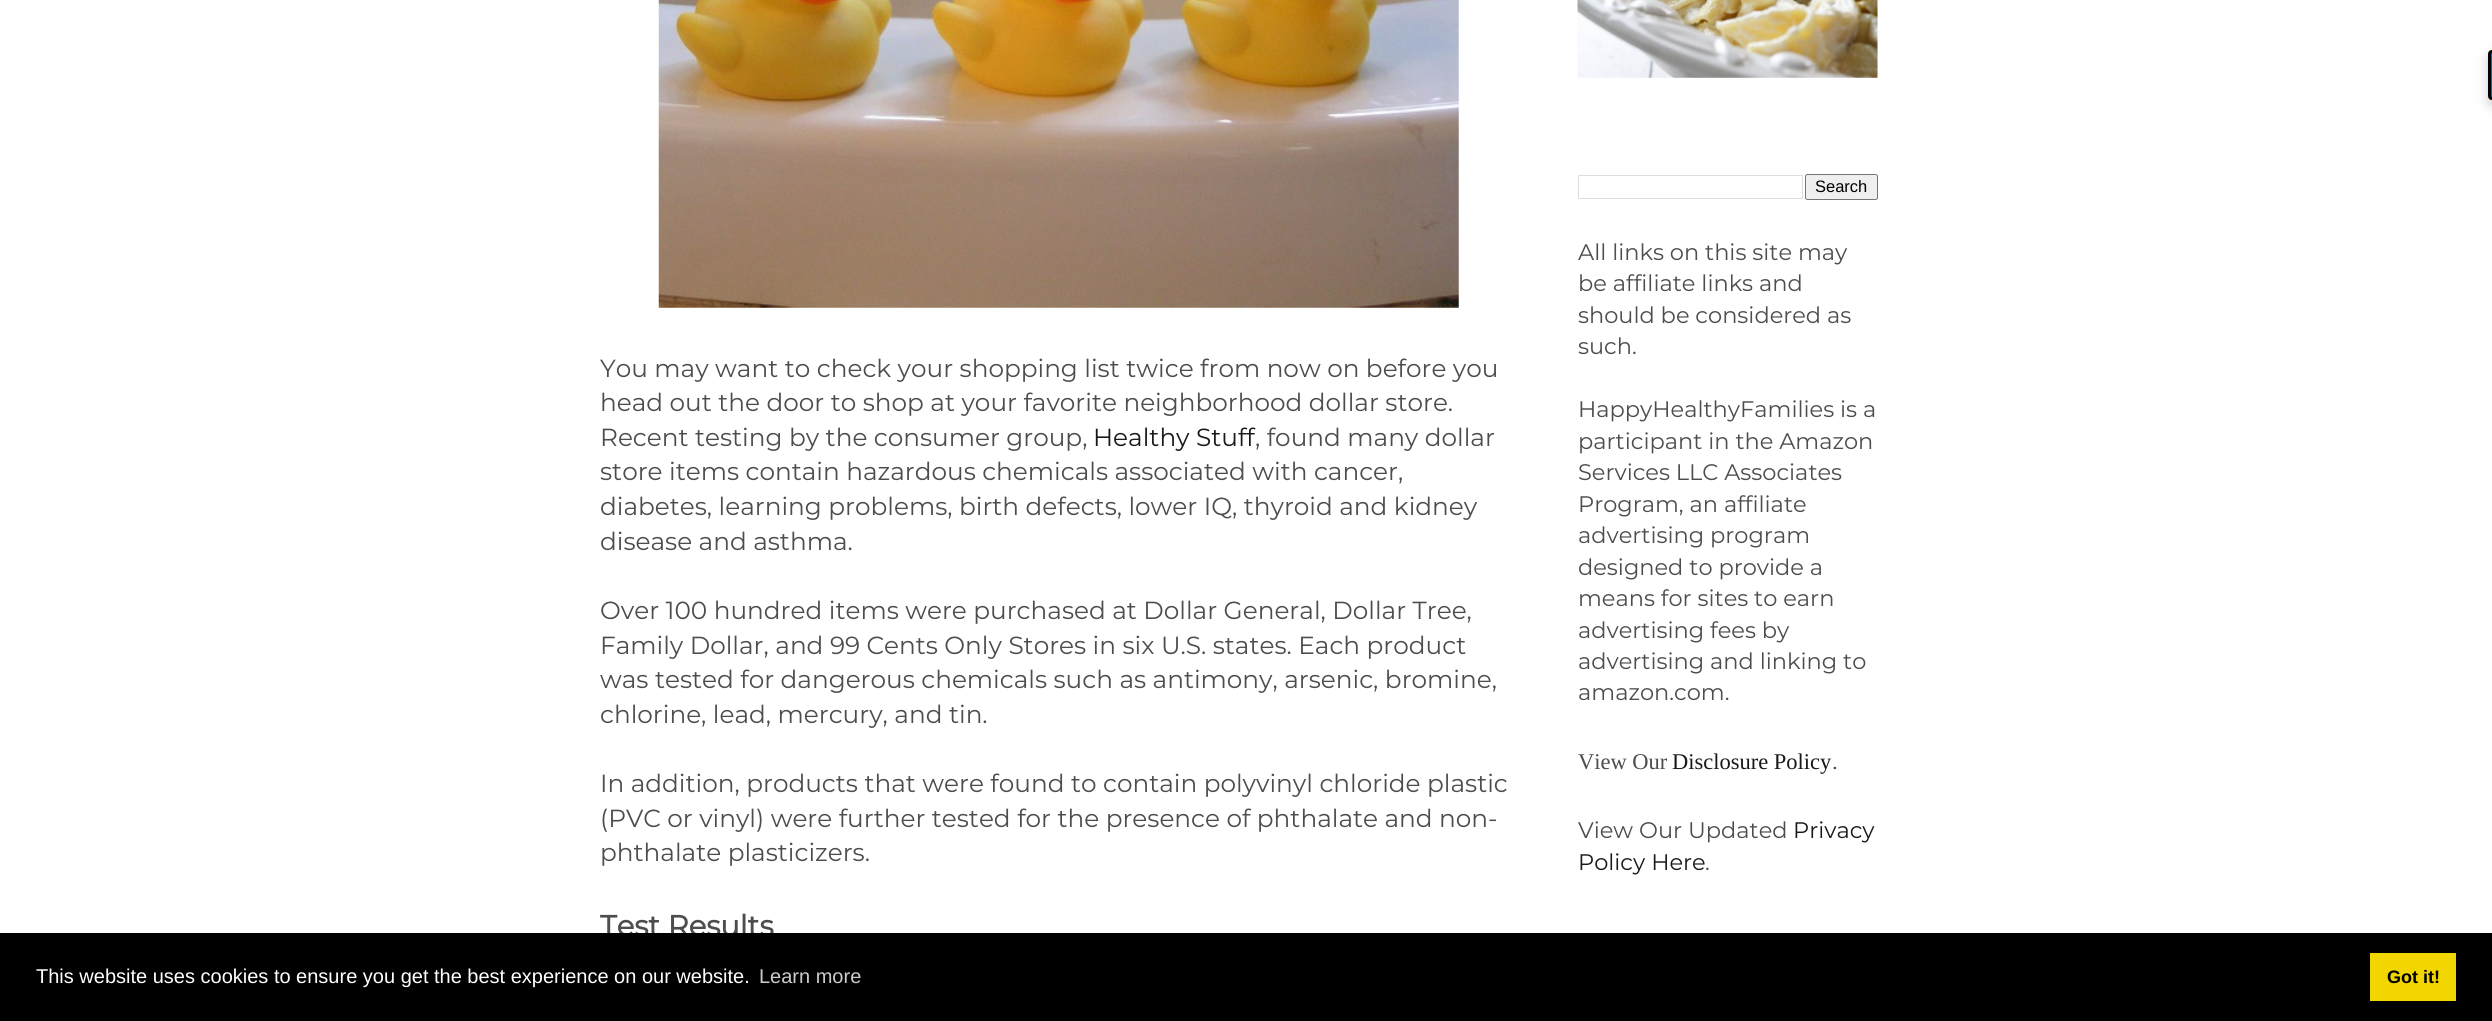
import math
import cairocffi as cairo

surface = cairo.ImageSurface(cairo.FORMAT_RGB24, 2492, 1021)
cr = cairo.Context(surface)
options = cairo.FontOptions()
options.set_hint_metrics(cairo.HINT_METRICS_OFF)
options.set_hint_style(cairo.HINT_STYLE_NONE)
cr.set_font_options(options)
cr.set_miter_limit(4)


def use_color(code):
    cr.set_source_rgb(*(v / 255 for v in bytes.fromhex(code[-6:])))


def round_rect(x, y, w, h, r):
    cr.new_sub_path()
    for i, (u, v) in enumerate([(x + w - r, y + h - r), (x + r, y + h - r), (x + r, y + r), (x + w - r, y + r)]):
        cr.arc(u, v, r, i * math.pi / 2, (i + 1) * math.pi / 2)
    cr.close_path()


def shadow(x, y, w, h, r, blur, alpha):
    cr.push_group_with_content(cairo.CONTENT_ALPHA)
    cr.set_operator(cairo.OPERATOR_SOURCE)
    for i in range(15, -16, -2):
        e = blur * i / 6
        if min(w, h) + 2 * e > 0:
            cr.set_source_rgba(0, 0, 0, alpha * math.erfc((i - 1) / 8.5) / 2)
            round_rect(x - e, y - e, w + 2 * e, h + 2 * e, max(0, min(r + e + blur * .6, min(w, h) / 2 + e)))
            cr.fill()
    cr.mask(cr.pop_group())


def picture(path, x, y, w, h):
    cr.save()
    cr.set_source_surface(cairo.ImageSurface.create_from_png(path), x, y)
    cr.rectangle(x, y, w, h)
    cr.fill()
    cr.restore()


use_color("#ffffff")
cr.paint()
use_color("#000000")
shadow(2488, 55, 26, 50, 4, 6, 0.2)
use_color("#0073b7")
cr.new_path()
cr.move_to(2492, 51.5)
cr.line_to(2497.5, 51.5)
cr.line_to(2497.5, 98.5)
cr.line_to(2492, 98.5)
cr.curve_to(2490.5, 98.5, 2489.5, 97.5, 2489.5, 96)
cr.line_to(2489.5, 54)
cr.curve_to(2489.5, 52.5, 2490.5, 51.5, 2492, 51.5)
cr.close_path()
cr.fill_preserve()
use_color("#000000")
cr.set_line_width(3)
cr.stroke()
picture("img1.png", 658, 0, 801, 308)
cr.select_font_face("Montserrat Thin")
cr.set_font_size(24.75)
use_color("#4d4d4d")
cr.move_to(600, 377)
cr.show_text("You may want to check your shopping list twice from now on before you")
cr.move_to(600, 411)
cr.show_text("head out the door to shop at your favorite neighborhood dollar store.")
cr.move_to(600, 446)
cr.show_text("Recent testing by the consumer group,")
use_color("#191919")
cr.move_to(1093, 446)
cr.show_text("Healthy Stuff")
use_color("#4d4d4d")
cr.move_to(1255, 446)
cr.show_text(", found many dollar")
cr.move_to(600, 480)
cr.show_text("store items contain hazardous chemicals associated with cancer,")
cr.move_to(600, 515)
cr.show_text("diabetes, learning problems, birth defects, lower IQ, thyroid and kidney")
cr.move_to(600, 550)
cr.show_text("disease and asthma.")
cr.move_to(600, 619)
cr.show_text("Over 100 hundred items were purchased at Dollar General, Dollar Tree,")
cr.move_to(600, 654)
cr.show_text("Family Dollar, and 99 Cents Only Stores in six U.S. states. Each product")
cr.move_to(600, 688)
cr.show_text("was tested for dangerous chemicals such as antimony, arsenic, bromine,")
cr.move_to(600, 723)
cr.show_text("chlorine, lead, mercury, and tin.")
cr.move_to(600, 792)
cr.show_text("In addition, products that were found to contain polyvinyl chloride plastic")
cr.move_to(600, 827)
cr.show_text("(PVC or vinyl) were further tested for the presence of phthalate and non-")
cr.move_to(600, 861)
cr.show_text("phthalate plasticizers.")
cr.select_font_face("Montserrat", cairo.FONT_SLANT_NORMAL, cairo.FONT_WEIGHT_BOLD)
cr.set_font_size(29)
cr.move_to(600, 936)
cr.show_text("Test Results")
picture("img2.png", 1577, 0, 301, 78)
cr.rectangle(1578.5, 175.5, 224, 23)
use_color("#dddddd")
cr.set_line_width(1)
cr.stroke()
use_color("#efefef")
round_rect(1805.5, 174.5, 72, 25, 2)
cr.fill_preserve()
use_color("#767676")
cr.stroke()
cr.select_font_face("Liberation Sans")
cr.set_font_size(16.5)
use_color("#000000")
cr.move_to(1815, 192)
cr.show_text("Search")
cr.select_font_face("Montserrat Thin")
cr.set_font_size(22.5)
use_color("#4d4d4d")
cr.move_to(1578, 260)
cr.show_text("All links on this site may")
cr.move_to(1578, 291)
cr.show_text("be affiliate links and")
cr.move_to(1578, 323)
cr.show_text("should be considered as")
cr.move_to(1578, 354)
cr.show_text("such.")
cr.move_to(1578, 417)
cr.show_text("HappyHealthyFamilies is a")
cr.move_to(1578, 449)
cr.show_text("participant in the Amazon")
cr.move_to(1578, 480)
cr.show_text("Services LLC Associates")
cr.move_to(1578, 512)
cr.show_text("Program, an affiliate")
cr.move_to(1578, 543)
cr.show_text("advertising program")
cr.move_to(1578, 575)
cr.show_text("designed to provide a")
cr.move_to(1578, 606)
cr.show_text("means for sites to earn")
cr.move_to(1578, 638)
cr.show_text("advertising fees by")
cr.move_to(1578, 669)
cr.show_text("advertising and linking to")
cr.move_to(1578, 700)
cr.show_text("amazon.com.")
cr.select_font_face("Liberation Serif")
cr.move_to(1578, 769)
cr.show_text("View Our")
use_color("#191919")
cr.move_to(1672, 769)
cr.show_text("Disclosure Policy")
use_color("#4d4d4d")
cr.move_to(1832, 769)
cr.show_text(".")
cr.select_font_face("Montserrat Thin")
cr.move_to(1578, 838)
cr.show_text("View Our Updated")
use_color("#191919")
cr.move_to(1793, 838)
cr.show_text("Privacy")
cr.move_to(1578, 870)
cr.show_text("Policy Here")
use_color("#4d4d4d")
cr.move_to(1705, 870)
cr.show_text(".")
use_color("#000000")
cr.rectangle(0, 933, 2492, 88)
cr.fill()
cr.select_font_face("Liberation Sans")
cr.set_font_size(20)
use_color("#ffffff")
cr.move_to(36, 983)
cr.show_text("This website uses cookies to ensure you get the best experience on our website.")
use_color("#cccccc")
cr.move_to(759, 983)
cr.show_text("Learn more")
use_color("#f1d600")
cr.rectangle(2370, 953, 86, 48)
cr.fill()
cr.select_font_face("Liberation Sans", cairo.FONT_SLANT_NORMAL, cairo.FONT_WEIGHT_BOLD)
cr.set_font_size(18)
use_color("#000000")
cr.move_to(2387, 983)
cr.show_text("Got it!")
surface.write_to_png("result.png")
